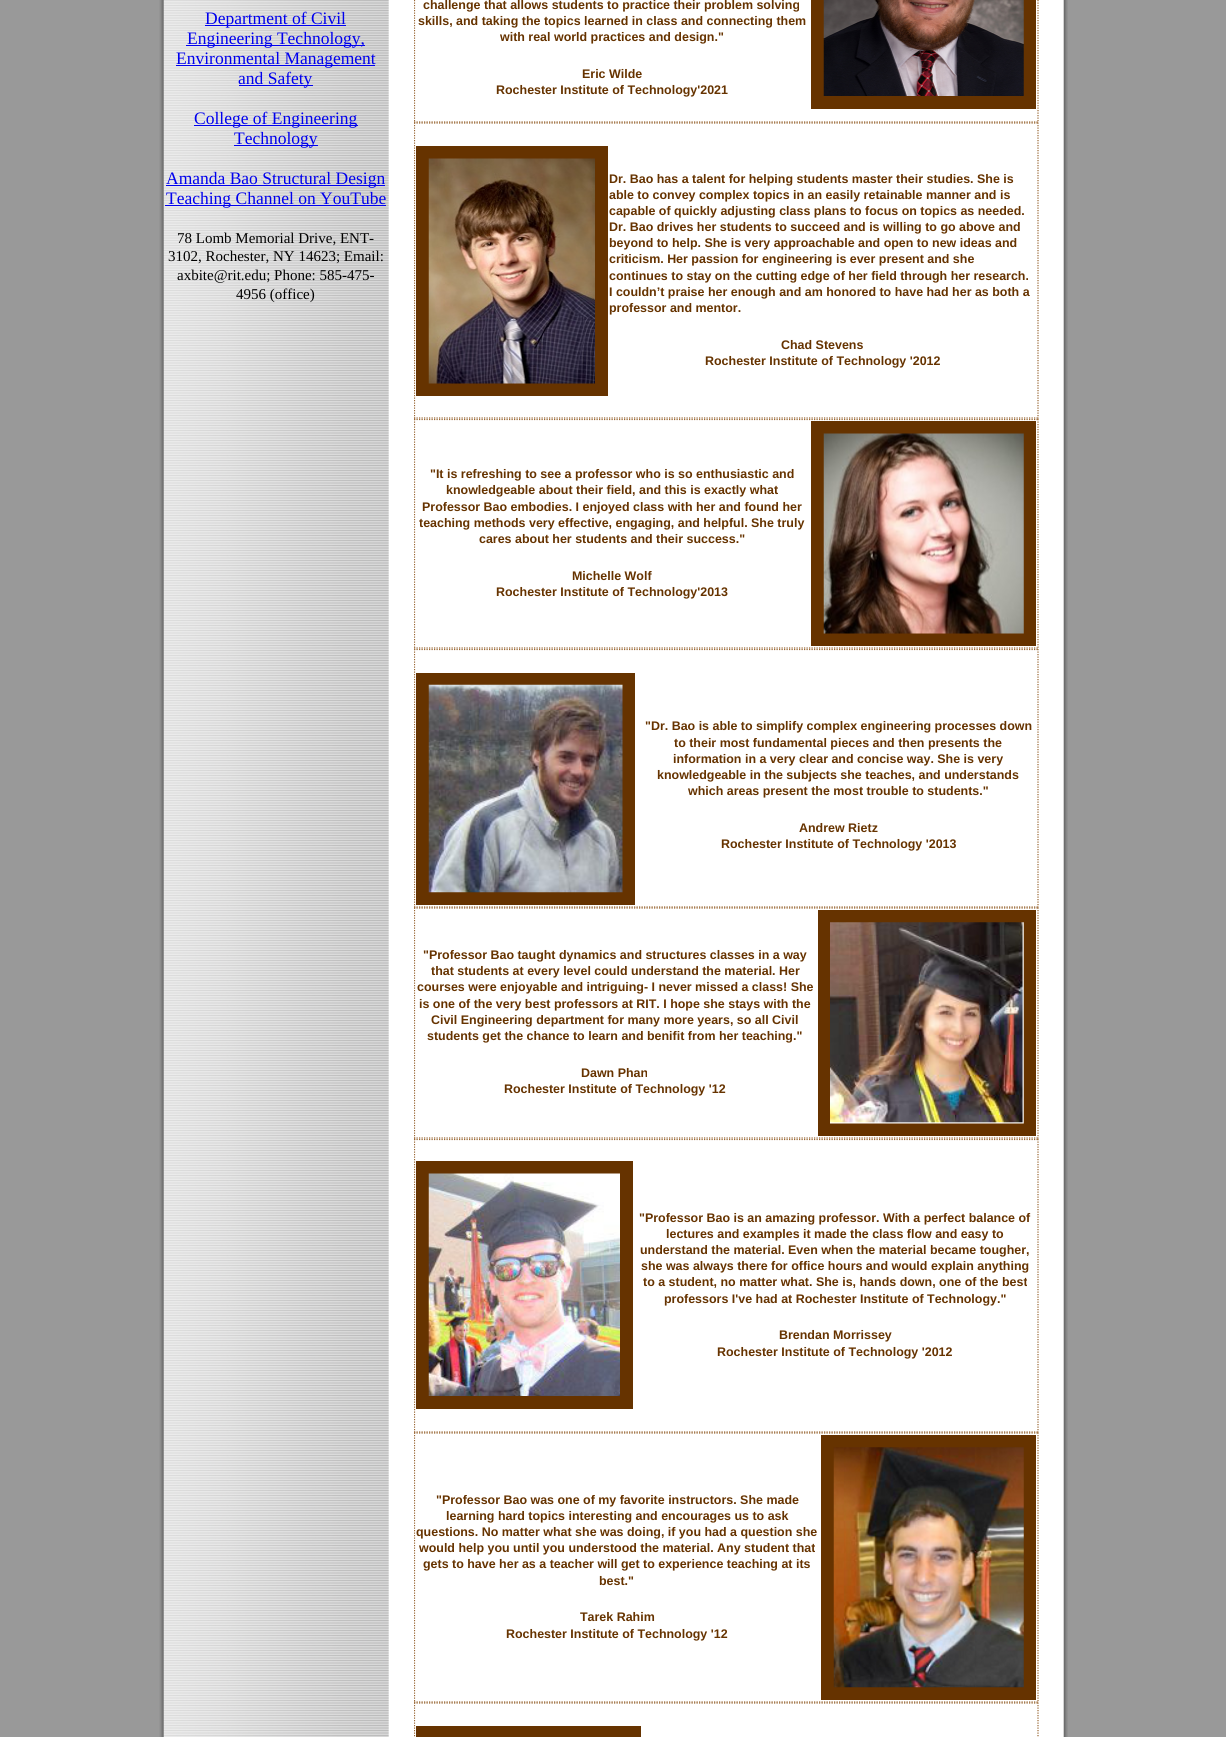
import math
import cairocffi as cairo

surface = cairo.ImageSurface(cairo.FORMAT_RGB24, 1226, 1737)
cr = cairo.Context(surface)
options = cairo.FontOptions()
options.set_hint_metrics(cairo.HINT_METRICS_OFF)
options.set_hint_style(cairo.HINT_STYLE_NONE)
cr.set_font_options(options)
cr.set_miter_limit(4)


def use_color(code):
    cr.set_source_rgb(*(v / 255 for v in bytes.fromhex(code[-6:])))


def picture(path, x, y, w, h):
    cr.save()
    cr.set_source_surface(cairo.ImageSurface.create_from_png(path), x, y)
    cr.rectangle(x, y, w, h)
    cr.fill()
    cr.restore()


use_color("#999999")
cr.paint()
picture("img1.png", 159, 0, 909, 1737)
use_color("#0000ee")
cr.rectangle(205, 25, 141, 1)
cr.fill()
cr.select_font_face("Liberation Serif")
cr.set_font_size(17.5)
cr.move_to(205, 24)
cr.show_text("Department of Civil")
cr.rectangle(186, 45, 179, 1)
cr.fill()
cr.move_to(187, 44)
cr.show_text("Engineering Technology,")
cr.rectangle(176, 65, 199, 1)
cr.fill()
cr.move_to(176, 64)
cr.show_text("Environmental Management")
cr.rectangle(239, 85, 74, 1)
cr.fill()
cr.move_to(238, 84)
cr.show_text("and Safety")
cr.rectangle(194, 125, 164, 1)
cr.fill()
cr.move_to(194, 124)
cr.show_text("College of Engineering")
cr.rectangle(234, 145, 84, 1)
cr.fill()
cr.move_to(234, 144)
cr.show_text("Technology")
cr.rectangle(166, 185, 219, 1)
cr.fill()
cr.move_to(166, 184)
cr.show_text("Amanda Bao Structural Design")
cr.rectangle(165, 205, 221, 1)
cr.fill()
cr.move_to(166, 204)
cr.show_text("Teaching Channel on YouTube")
cr.set_font_size(15)
use_color("#000000")
cr.move_to(177, 243)
cr.show_text("78 Lomb Memorial Drive, ENT-")
cr.move_to(168, 261)
cr.show_text("3102, Rochester, NY 14623; Email:")
cr.move_to(177, 280)
cr.show_text("axbite@rit.edu; Phone: 585-475-")
cr.move_to(236, 299)
cr.show_text("4956 (office)")
cr.new_path()
cr.move_to(1038, -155)
cr.line_to(1038, 122.5)
use_color("#996633")
cr.set_line_width(1.2)
cr.set_dash([1.25, 1.25])
cr.stroke()
cr.new_path()
cr.move_to(414, 122)
cr.line_to(1039, 122)
cr.stroke()
cr.save()
cr.rectangle(414, 0, 625, 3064)
cr.clip()
cr.new_path()
cr.move_to(414.5, -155)
cr.line_to(414.5, 122.5)
cr.stroke()
cr.restore()
cr.select_font_face("Liberation Sans", cairo.FONT_SLANT_NORMAL, cairo.FONT_WEIGHT_BOLD)
cr.set_font_size(12.45)
use_color("#663300")
cr.move_to(423, 9)
cr.show_text("challenge that allows students to practice their problem solving")
cr.move_to(418, 25)
cr.show_text("skills, and taking the topics learned in class and connecting them")
cr.move_to(500, 41)
cr.show_text("with real world practices and design.\"")
cr.move_to(582, 78)
cr.show_text("Eric Wilde")
cr.move_to(496, 94)
cr.show_text("Rochester Institute of Technology'2021")
cr.rectangle(817.5, -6.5, 212, 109)
cr.set_line_width(13)
cr.set_dash([])
cr.stroke()
picture("img2.png", 823, 0, 201, 96)
cr.new_path()
cr.move_to(414, 123)
cr.line_to(1039, 123)
use_color("#996633")
cr.set_line_width(1.2)
cr.set_dash([1.25, 1.25])
cr.stroke()
cr.new_path()
cr.move_to(1038, 122.5)
cr.line_to(1038, 419)
cr.stroke()
cr.new_path()
cr.move_to(414, 418)
cr.line_to(1039, 418)
cr.stroke()
cr.save()
cr.rectangle(414, 0, 625, 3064)
cr.clip()
cr.new_path()
cr.move_to(414.5, 122.5)
cr.line_to(414.5, 419)
cr.stroke()
cr.restore()
cr.rectangle(422.5, 152.5, 179, 237)
use_color("#663300")
cr.set_line_width(13)
cr.set_dash([])
cr.stroke()
picture("img3.png", 428, 158, 167, 226)
cr.move_to(609, 183)
cr.show_text("Dr. Bao has a talent for helping students master their studies. She is")
cr.move_to(609, 199)
cr.show_text("able to convey complex topics in an easily retainable manner and is")
cr.move_to(609, 215)
cr.show_text("capable of quickly adjusting class plans to focus on topics as needed.")
cr.move_to(609, 231)
cr.show_text("Dr. Bao drives her students to succeed and is willing to go above and")
cr.move_to(609, 247)
cr.show_text("beyond to help. She is very approachable and open to new ideas and")
cr.move_to(609, 263)
cr.show_text("criticism. Her passion for engineering is ever present and she")
cr.move_to(609, 280)
cr.show_text("continues to stay on the cutting edge of her field through her research.")
cr.move_to(609, 296)
cr.show_text("I couldn’t praise her enough and am honored to have had her as both a")
cr.move_to(609, 312)
cr.show_text("professor and mentor.")
cr.move_to(781, 349)
cr.show_text("Chad Stevens")
cr.move_to(705, 365)
cr.show_text("Rochester Institute of Technology '2012")
cr.new_path()
cr.move_to(414, 419.5)
cr.line_to(1039, 419.5)
use_color("#996633")
cr.set_line_width(1.2)
cr.set_dash([1.25, 1.25])
cr.stroke()
cr.new_path()
cr.move_to(1038, 419)
cr.line_to(1038, 649)
cr.stroke()
cr.new_path()
cr.move_to(414, 648)
cr.line_to(1039, 648)
cr.stroke()
cr.save()
cr.rectangle(414, 0, 625, 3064)
cr.clip()
cr.new_path()
cr.move_to(414.5, 419)
cr.line_to(414.5, 649)
cr.stroke()
cr.restore()
use_color("#663300")
cr.move_to(430, 478)
cr.show_text("\"It is refreshing to see a professor who is so enthusiastic and")
cr.move_to(446, 494)
cr.show_text("knowledgeable about their field, and this is exactly what")
cr.move_to(422, 511)
cr.show_text("Professor Bao embodies. I enjoyed class with her and found her")
cr.move_to(419, 527)
cr.show_text("teaching methods very effective, engaging, and helpful. She truly")
cr.move_to(479, 543)
cr.show_text("cares about her students and their success.\"")
cr.move_to(572, 580)
cr.show_text("Michelle Wolf")
cr.move_to(496, 596)
cr.show_text("Rochester Institute of Technology'2013")
cr.rectangle(817.5, 427.5, 212, 212)
cr.set_line_width(13)
cr.set_dash([])
cr.stroke()
picture("img4.png", 823, 433, 201, 201)
cr.new_path()
cr.move_to(414, 649.5)
cr.line_to(1039, 649.5)
use_color("#996633")
cr.set_line_width(1.2)
cr.set_dash([1.25, 1.25])
cr.stroke()
cr.new_path()
cr.move_to(1038, 649)
cr.line_to(1038, 907.5)
cr.stroke()
cr.new_path()
cr.move_to(414, 907)
cr.line_to(1039, 907)
cr.stroke()
cr.save()
cr.rectangle(414, 0, 625, 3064)
cr.clip()
cr.new_path()
cr.move_to(414.5, 649)
cr.line_to(414.5, 907.5)
cr.stroke()
cr.restore()
cr.rectangle(422.5, 679.5, 206, 219)
use_color("#663300")
cr.set_line_width(13)
cr.set_dash([])
cr.stroke()
picture("img5.png", 428, 684, 195, 209)
cr.move_to(645, 730)
cr.show_text("\"Dr. Bao is able to simplify complex engineering processes down")
cr.move_to(674, 747)
cr.show_text("to their most fundamental pieces and then presents the")
cr.move_to(673, 763)
cr.show_text("information in a very clear and concise way. She is very")
cr.move_to(657, 779)
cr.show_text("knowledgeable in the subjects she teaches, and understands")
cr.move_to(688, 795)
cr.show_text("which areas present the most trouble to students.\"")
cr.move_to(799, 832)
cr.show_text("Andrew Rietz")
cr.move_to(721, 848)
cr.show_text("Rochester Institute of Technology '2013")
cr.new_path()
cr.move_to(414, 908)
cr.line_to(1039, 908)
use_color("#996633")
cr.set_line_width(1.2)
cr.set_dash([1.25, 1.25])
cr.stroke()
cr.new_path()
cr.move_to(1038, 907.5)
cr.line_to(1038, 1139)
cr.stroke()
cr.new_path()
cr.move_to(414, 1138)
cr.line_to(1039, 1138)
cr.stroke()
cr.save()
cr.rectangle(414, 0, 625, 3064)
cr.clip()
cr.new_path()
cr.move_to(414.5, 907.5)
cr.line_to(414.5, 1139)
cr.stroke()
cr.restore()
use_color("#663300")
cr.move_to(423, 959)
cr.show_text("\"Professor Bao taught dynamics and structures classes in a way")
cr.move_to(431, 975)
cr.show_text("that students at every level could understand the material. Her")
cr.move_to(417, 991)
cr.show_text("courses were enjoyable and intriguing- I never missed a class! She")
cr.move_to(419, 1008)
cr.show_text("is one of the very best professors at RIT. I hope she stays with the")
cr.move_to(431, 1024)
cr.show_text("Civil Engineering department for many more years, so all Civil")
cr.move_to(427, 1040)
cr.show_text("students get the chance to learn and benifit from her teaching.\"")
cr.move_to(581, 1077)
cr.show_text("Dawn Phan")
cr.move_to(504, 1093)
cr.show_text("Rochester Institute of Technology '12")
cr.rectangle(824.5, 916.5, 205, 213)
cr.set_line_width(13)
cr.set_dash([])
cr.stroke()
picture("img6.png", 830, 922, 194, 202)
cr.new_path()
cr.move_to(414, 1139.5)
cr.line_to(1039, 1139.5)
use_color("#996633")
cr.set_line_width(1.2)
cr.set_dash([1.25, 1.25])
cr.stroke()
cr.new_path()
cr.move_to(1038, 1139)
cr.line_to(1038, 1432.5)
cr.stroke()
cr.new_path()
cr.move_to(414, 1432)
cr.line_to(1039, 1432)
cr.stroke()
cr.save()
cr.rectangle(414, 0, 625, 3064)
cr.clip()
cr.new_path()
cr.move_to(414.5, 1139)
cr.line_to(414.5, 1432.5)
cr.stroke()
cr.restore()
cr.rectangle(422.5, 1167.5, 204, 235)
use_color("#663300")
cr.set_line_width(13)
cr.set_dash([])
cr.stroke()
picture("img7.png", 428, 1173, 192, 223)
cr.move_to(639, 1222)
cr.show_text("\"Professor Bao is an amazing professor. With a perfect balance of")
cr.move_to(666, 1238)
cr.show_text("lectures and examples it made the class flow and easy to")
cr.move_to(640, 1254)
cr.show_text("understand the material. Even when the material became tougher,")
cr.move_to(641, 1270)
cr.show_text("she was always there for office hours and would explain anything")
cr.move_to(643, 1286)
cr.show_text("to a student, no matter what. She is, hands down, one of the best")
cr.move_to(664, 1303)
cr.show_text("professors I've had at Rochester Institute of Technology.\"")
cr.move_to(779, 1339)
cr.show_text("Brendan Morrissey")
cr.move_to(717, 1356)
cr.show_text("Rochester Institute of Technology '2012")
cr.new_path()
cr.move_to(414, 1433)
cr.line_to(1039, 1433)
use_color("#996633")
cr.set_line_width(1.2)
cr.set_dash([1.25, 1.25])
cr.stroke()
cr.new_path()
cr.move_to(1038, 1432.5)
cr.line_to(1038, 1702.5)
cr.stroke()
cr.new_path()
cr.move_to(414, 1702)
cr.line_to(1039, 1702)
cr.stroke()
cr.save()
cr.rectangle(414, 0, 625, 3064)
cr.clip()
cr.new_path()
cr.move_to(414.5, 1432.5)
cr.line_to(414.5, 1702.5)
cr.stroke()
cr.restore()
use_color("#663300")
cr.move_to(436, 1504)
cr.show_text("\"Professor Bao was one of my favorite instructors. She made")
cr.move_to(446, 1520)
cr.show_text("learning hard topics interesting and encourages us to ask")
cr.move_to(416, 1536)
cr.show_text("questions. No matter what she was doing, if you had a question she")
cr.move_to(419, 1552)
cr.show_text("would help you until you understood the material. Any student that")
cr.move_to(423, 1568)
cr.show_text("gets to have her as a teacher will get to experience teaching at its")
cr.move_to(599, 1585)
cr.show_text("best.\"")
cr.move_to(580, 1621)
cr.show_text("Tarek Rahim")
cr.move_to(506, 1638)
cr.show_text("Rochester Institute of Technology '12")
cr.rectangle(827.5, 1441.5, 202, 252)
cr.set_line_width(13)
cr.set_dash([])
cr.stroke()
picture("img8.png", 833, 1447, 191, 241)
cr.new_path()
cr.move_to(414, 1703)
cr.line_to(1039, 1703)
use_color("#996633")
cr.set_line_width(1.2)
cr.set_dash([1.25, 1.25])
cr.stroke()
cr.new_path()
cr.move_to(1038, 1702.5)
cr.line_to(1038, 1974)
cr.stroke()
cr.save()
cr.rectangle(414, 0, 625, 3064)
cr.clip()
cr.new_path()
cr.move_to(414.5, 1702.5)
cr.line_to(414.5, 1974)
cr.stroke()
cr.restore()
cr.rectangle(422.5, 1732.5, 212, 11)
use_color("#663300")
cr.set_line_width(13)
cr.set_dash([])
cr.stroke()
surface.write_to_png("result.png")
